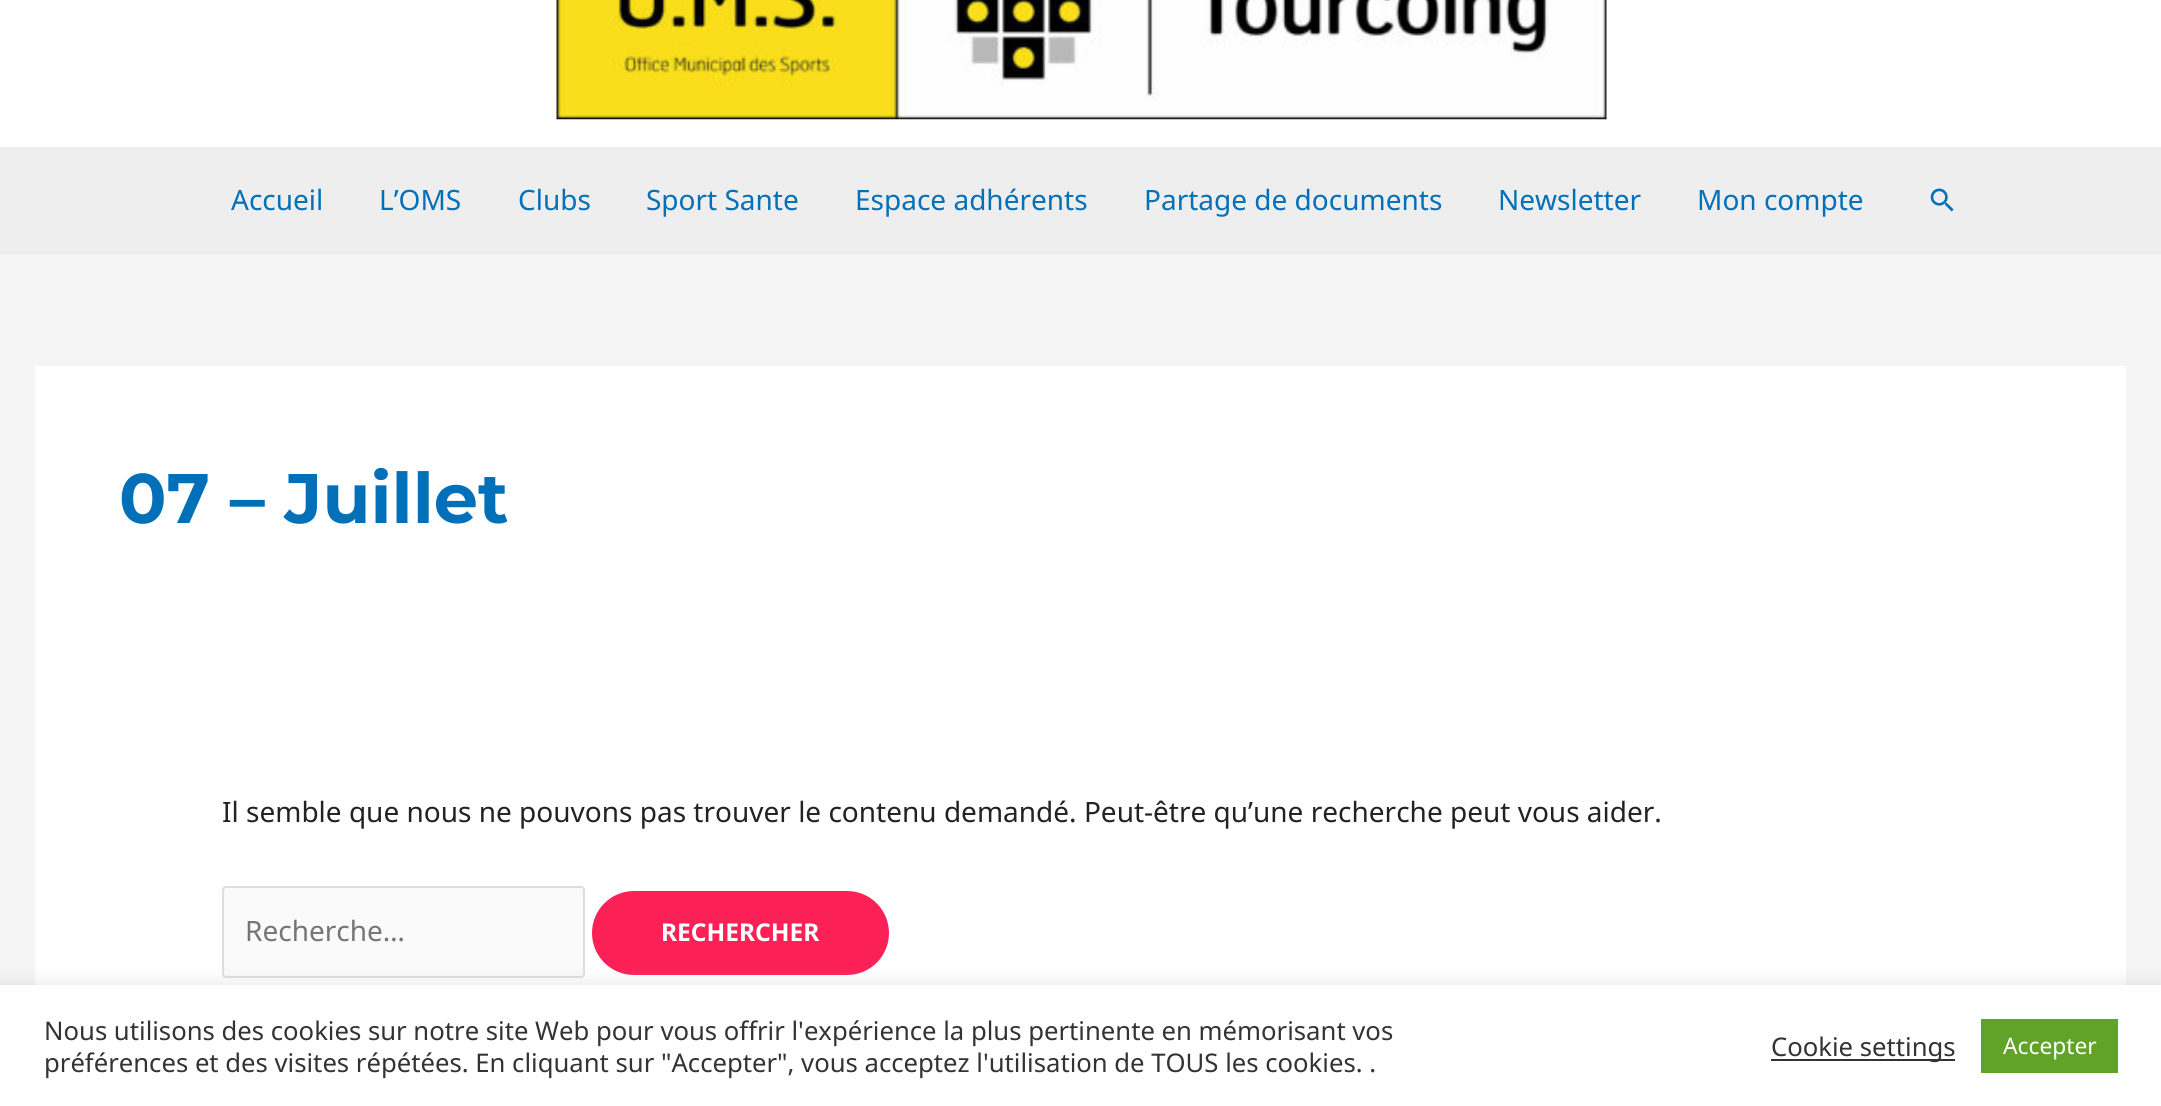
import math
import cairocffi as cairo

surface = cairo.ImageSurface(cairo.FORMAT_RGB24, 2161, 1106)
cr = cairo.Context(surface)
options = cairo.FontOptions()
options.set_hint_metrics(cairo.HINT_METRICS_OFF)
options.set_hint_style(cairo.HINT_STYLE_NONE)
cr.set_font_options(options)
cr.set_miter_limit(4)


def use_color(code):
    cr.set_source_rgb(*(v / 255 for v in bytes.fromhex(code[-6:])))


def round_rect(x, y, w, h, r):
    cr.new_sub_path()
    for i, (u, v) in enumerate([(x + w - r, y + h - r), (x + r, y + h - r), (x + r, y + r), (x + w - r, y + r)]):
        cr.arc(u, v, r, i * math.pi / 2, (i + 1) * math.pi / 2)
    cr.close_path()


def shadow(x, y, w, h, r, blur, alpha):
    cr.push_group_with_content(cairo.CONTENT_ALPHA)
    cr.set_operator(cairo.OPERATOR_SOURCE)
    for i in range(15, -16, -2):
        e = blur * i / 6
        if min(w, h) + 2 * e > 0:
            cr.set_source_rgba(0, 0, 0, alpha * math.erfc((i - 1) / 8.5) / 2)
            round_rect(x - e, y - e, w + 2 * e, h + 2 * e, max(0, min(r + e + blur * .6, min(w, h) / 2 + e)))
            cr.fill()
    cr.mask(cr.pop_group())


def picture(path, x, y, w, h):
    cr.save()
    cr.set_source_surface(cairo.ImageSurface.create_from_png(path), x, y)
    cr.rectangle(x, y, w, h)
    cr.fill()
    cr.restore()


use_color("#f5f5f5")
cr.paint()
use_color("#ffffff")
cr.rectangle(0, 0, 2161, 147)
cr.fill()
picture("img1.png", 556, 0, 1051, 120)
use_color("#eeeeee")
cr.rectangle(0, 147, 2161, 105)
cr.fill()
use_color("#eaeaea")
cr.rectangle(0, 252, 2161, 2)
cr.fill()
cr.select_font_face("Noto Sans")
cr.set_font_size(28)
use_color("#0170b9")
cr.move_to(231, 210)
cr.show_text("Accueil")
cr.move_to(379, 210)
cr.show_text("L’OMS")
cr.move_to(518, 210)
cr.show_text("Clubs")
cr.move_to(646, 210)
cr.show_text("Sport Sante")
cr.move_to(855, 210)
cr.show_text("Espace adhérents")
cr.move_to(1144, 210)
cr.show_text("Partage de documents")
cr.move_to(1498, 210)
cr.show_text("Newsletter")
cr.move_to(1697, 210)
cr.show_text("Mon compte")
picture("img2.png", 1930, 188, 24, 24)
use_color("#ffffff")
cr.rectangle(35, 366, 2091, 619)
cr.fill()
cr.select_font_face("Montserrat Thin")
cr.set_font_size(70)
use_color("#0170b9")
cr.move_to(119, 523)
cr.show_text("07 – Juillet")
cr.select_font_face("Noto Sans")
cr.set_font_size(28)
use_color("#222222")
cr.move_to(222, 822)
cr.show_text("Il semble que nous ne pouvons pas trouver le contenu demandé. Peut-être qu’une recherche peut vous aider.")
use_color("#fafafa")
round_rect(223, 887, 361, 90, 3)
cr.fill_preserve()
use_color("#dddddd")
cr.stroke()
use_color("#757575")
cr.move_to(245, 941)
cr.show_text("Recherche…")
use_color("#fb2056")
round_rect(592, 891, 297, 84, 42)
cr.fill()
cr.select_font_face("Noto Sans", cairo.FONT_SLANT_NORMAL, cairo.FONT_WEIGHT_BOLD)
cr.set_font_size(24.5)
use_color("#ffffff")
cr.move_to(661, 941)
cr.show_text("RECHERCHER")
use_color("#acabab")
shadow(0, 984, 2161, 120, 0, 9, 0.3)
use_color("#ffffff")
cr.rectangle(0, 985, 2161, 121)
cr.fill()
cr.select_font_face("Noto Sans")
cr.set_font_size(25.67)
use_color("#333333")
cr.move_to(44, 1040)
cr.show_text("Nous utilisons des cookies sur notre site Web pour vous offrir l'expérience la plus pertinente en mémorisant vos")
cr.move_to(44, 1072)
cr.show_text("préférences et des visites répétées. En cliquant sur \"Accepter\", vous acceptez l'utilisation de TOUS les cookies. .")
cr.rectangle(1771, 1059, 184, 2)
cr.fill()
cr.move_to(1771, 1056)
cr.show_text("Cookie settings")
use_color("#61a229")
cr.rectangle(1981, 1019, 137, 54)
cr.fill()
cr.set_font_size(22.75)
use_color("#ffffff")
cr.move_to(2003, 1054)
cr.show_text("Accepter")
surface.write_to_png("result.png")
